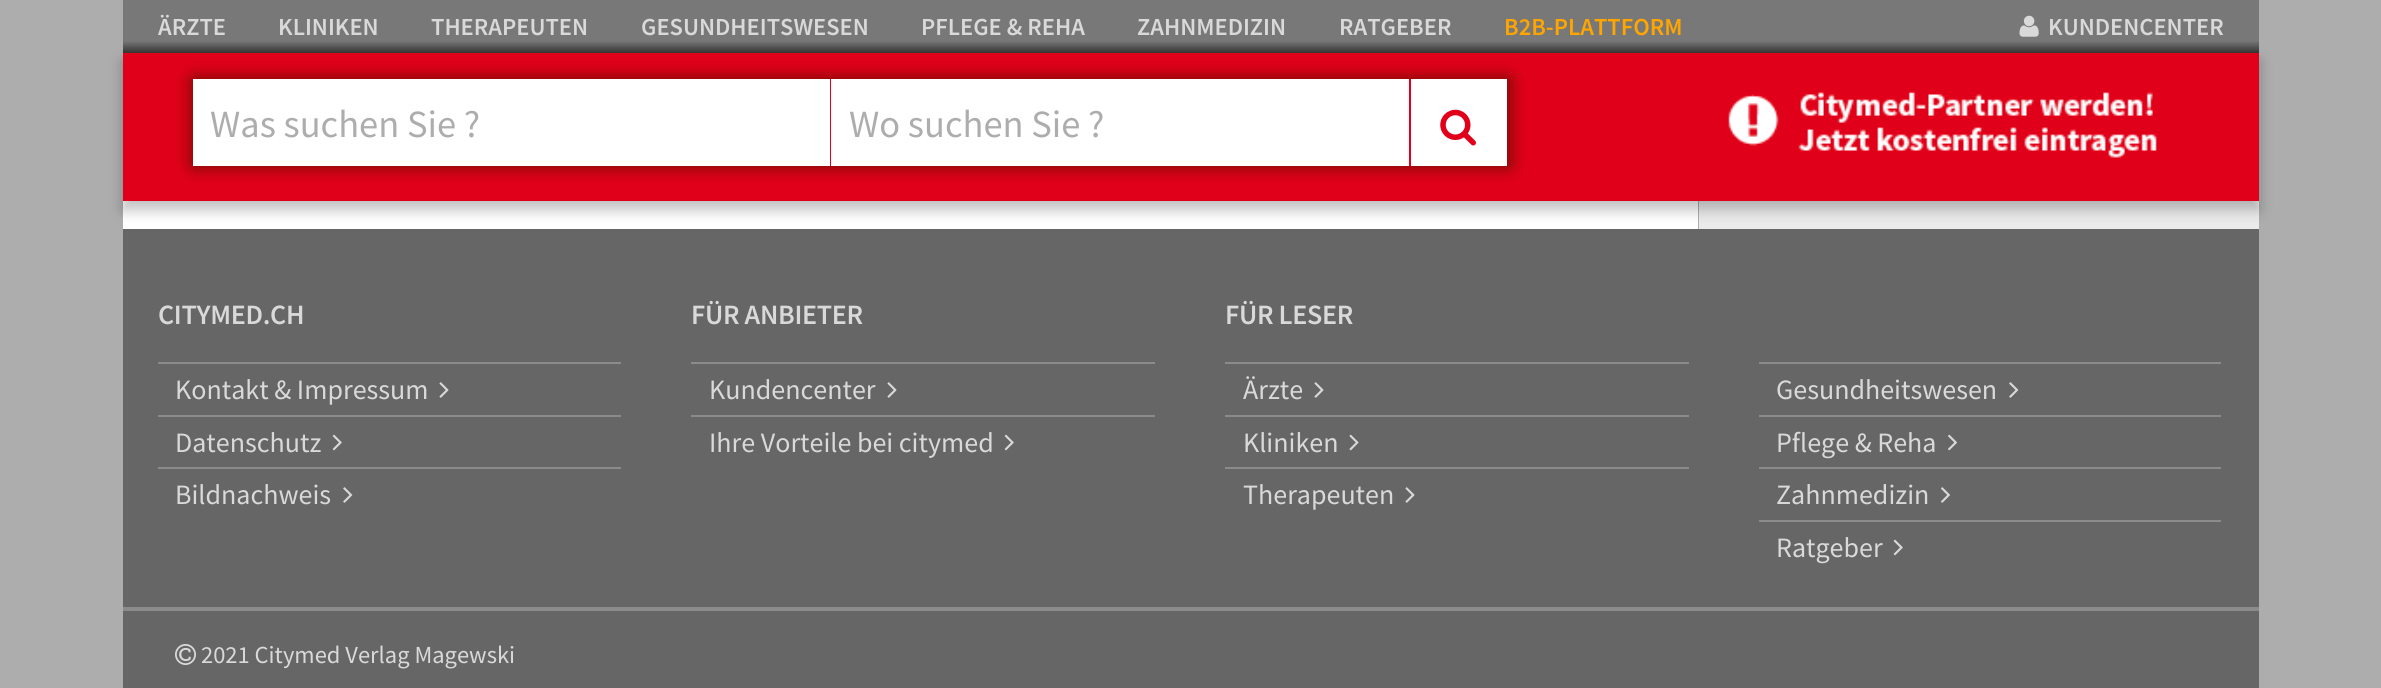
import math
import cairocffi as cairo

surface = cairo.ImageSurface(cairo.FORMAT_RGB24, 2381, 688)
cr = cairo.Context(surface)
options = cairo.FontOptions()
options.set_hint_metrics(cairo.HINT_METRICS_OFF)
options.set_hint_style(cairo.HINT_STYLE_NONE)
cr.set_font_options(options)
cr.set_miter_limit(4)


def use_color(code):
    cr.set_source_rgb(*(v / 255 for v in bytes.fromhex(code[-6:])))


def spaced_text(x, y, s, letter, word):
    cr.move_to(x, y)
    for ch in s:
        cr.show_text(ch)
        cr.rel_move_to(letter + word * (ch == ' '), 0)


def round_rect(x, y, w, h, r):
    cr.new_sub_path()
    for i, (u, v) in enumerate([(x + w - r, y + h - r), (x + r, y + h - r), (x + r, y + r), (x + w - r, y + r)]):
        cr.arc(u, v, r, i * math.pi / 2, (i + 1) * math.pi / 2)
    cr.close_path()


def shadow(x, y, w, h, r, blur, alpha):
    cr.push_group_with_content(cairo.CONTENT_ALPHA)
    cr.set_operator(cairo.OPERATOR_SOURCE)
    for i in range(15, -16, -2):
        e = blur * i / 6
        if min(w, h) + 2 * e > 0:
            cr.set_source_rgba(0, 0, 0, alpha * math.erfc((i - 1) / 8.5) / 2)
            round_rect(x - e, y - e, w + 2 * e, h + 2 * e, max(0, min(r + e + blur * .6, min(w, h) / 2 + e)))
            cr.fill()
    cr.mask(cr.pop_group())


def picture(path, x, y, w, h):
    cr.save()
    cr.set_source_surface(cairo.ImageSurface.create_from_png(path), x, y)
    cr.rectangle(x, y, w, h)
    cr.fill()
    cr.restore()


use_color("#adadad")
cr.paint()
use_color("#ffffff")
cr.rectangle(123, 201, 1575, 28)
cr.fill()
use_color("#ebebeb")
cr.rectangle(1699, 201, 560, 28)
cr.fill()
use_color("#666666")
cr.rectangle(123, 229, 2136, 459)
cr.fill()
use_color("#000000")
shadow(123, 61, 2136, 149, 0, 7, 0.25)
use_color("#e10019")
cr.rectangle(123, 53, 2136, 148)
cr.fill()
use_color("#5f0f00")
shadow(193, 79, 1316, 87, 0, 9, 1)
gradient = cairo.LinearGradient(1191, 0, 1191, 53)
gradient.add_color_stop_rgba(0.77, 0.471, 0.471, 0.471, 1)
gradient.add_color_stop_rgba(1, 0.2, 0.2, 0.2, 1)
cr.set_source(gradient)
cr.rectangle(123, 0, 2136, 53)
cr.fill()
cr.select_font_face("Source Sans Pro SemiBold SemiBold")
cr.set_font_size(24.5)
use_color("#d9d9d9")
cr.move_to(158, 35)
cr.show_text("ÄRZTE")
cr.move_to(278, 35)
cr.show_text("KLINIKEN")
cr.move_to(431, 35)
cr.show_text("THERAPEUTEN")
cr.move_to(641, 35)
cr.show_text("GESUNDHEITSWESEN")
cr.move_to(921, 35)
cr.show_text("PFLEGE & REHA")
cr.move_to(1137, 35)
cr.show_text("ZAHNMEDIZIN")
cr.move_to(1339, 35)
cr.show_text("RATGEBER")
use_color("#ffa500")
cr.move_to(1504, 35)
cr.show_text("B2B-PLATTFORM")
picture("img1.png", 2019, 15, 20, 22)
use_color("#d9d9d9")
cr.move_to(2048, 35)
cr.show_text("KUNDENCENTER")
use_color("#ffffff")
cr.rectangle(193, 79, 637, 87)
cr.fill()
use_color("#e10019")
cr.rectangle(830, 79, 1, 87)
cr.fill()
cr.select_font_face("Source Sans Pro")
cr.set_font_size(38.5)
use_color("#adadad")
cr.move_to(210, 137)
cr.show_text("Was suchen Sie ?")
use_color("#ffffff")
cr.rectangle(831, 79, 578, 87)
cr.fill()
use_color("#e10019")
cr.rectangle(1409, 79, 2, 87)
cr.fill()
use_color("#adadad")
cr.move_to(849, 137)
cr.show_text("Wo suchen Sie ?")
use_color("#ffffff")
cr.rectangle(1411, 79, 96, 87)
cr.fill()
picture("img2.png", 1440, 109, 36, 37)
picture("img3.png", 1728, 92, 429, 66)
cr.select_font_face("Source Sans Pro SemiBold SemiBold")
cr.set_font_size(28)
use_color("#d9d9d9")
spaced_text(158, 324, "CITYMED.CH", -0.3, 0)
use_color("#8b8b8b")
cr.rectangle(158, 362, 463, 2)
cr.fill()
cr.select_font_face("Source Sans Pro")
use_color("#d9d9d9")
cr.move_to(175, 399)
cr.show_text("Kontakt & Impressum")
picture("img4.png", 439, 382, 10, 16)
use_color("#8b8b8b")
cr.rectangle(158, 415, 463, 2)
cr.fill()
use_color("#d9d9d9")
cr.move_to(175, 452)
cr.show_text("Datenschutz")
picture("img5.png", 332, 434, 10, 17)
use_color("#8b8b8b")
cr.rectangle(158, 467, 463, 2)
cr.fill()
use_color("#d9d9d9")
cr.move_to(175, 504)
cr.show_text("Bildnachweis")
picture("img6.png", 343, 487, 10, 16)
cr.select_font_face("Source Sans Pro SemiBold SemiBold")
spaced_text(691, 324, "FÜR ANBIETER", -0.3, 0)
use_color("#8b8b8b")
cr.rectangle(691, 362, 464, 2)
cr.fill()
cr.select_font_face("Source Sans Pro")
use_color("#d9d9d9")
cr.move_to(709, 399)
cr.show_text("Kundencenter")
picture("img4.png", 887, 382, 10, 16)
use_color("#8b8b8b")
cr.rectangle(691, 415, 464, 2)
cr.fill()
use_color("#d9d9d9")
cr.move_to(709, 452)
cr.show_text("Ihre Vorteile bei citymed")
picture("img5.png", 1004, 434, 10, 17)
cr.select_font_face("Source Sans Pro SemiBold SemiBold")
spaced_text(1225, 324, "FÜR LESER", -0.3, 0)
use_color("#8b8b8b")
cr.rectangle(1225, 362, 464, 2)
cr.fill()
cr.select_font_face("Source Sans Pro")
use_color("#d9d9d9")
cr.move_to(1243, 399)
cr.show_text("Ärzte")
picture("img4.png", 1314, 382, 10, 16)
use_color("#8b8b8b")
cr.rectangle(1225, 415, 464, 2)
cr.fill()
use_color("#d9d9d9")
cr.move_to(1243, 452)
cr.show_text("Kliniken")
picture("img7.png", 1349, 434, 10, 17)
use_color("#8b8b8b")
cr.rectangle(1225, 467, 464, 2)
cr.fill()
use_color("#d9d9d9")
cr.move_to(1243, 504)
cr.show_text("Therapeuten")
picture("img4.png", 1405, 487, 10, 16)
use_color("#8b8b8b")
cr.rectangle(1759, 362, 462, 2)
cr.fill()
use_color("#d9d9d9")
cr.move_to(1776, 399)
cr.show_text("Gesundheitswesen")
picture("img6.png", 2009, 382, 10, 16)
use_color("#8b8b8b")
cr.rectangle(1759, 415, 462, 2)
cr.fill()
use_color("#d9d9d9")
cr.move_to(1776, 452)
cr.show_text("Pflege & Reha")
picture("img8.png", 1948, 434, 9, 17)
use_color("#8b8b8b")
cr.rectangle(1759, 467, 462, 2)
cr.fill()
use_color("#d9d9d9")
cr.move_to(1776, 504)
cr.show_text("Zahnmedizin")
picture("img9.png", 1941, 487, 9, 16)
use_color("#8b8b8b")
cr.rectangle(1759, 520, 462, 2)
cr.fill()
use_color("#d9d9d9")
cr.move_to(1776, 557)
cr.show_text("Ratgeber")
picture("img5.png", 1893, 539, 10, 17)
use_color("#8b8b8b")
cr.rectangle(123, 607, 2136, 4)
cr.fill()
picture("img10.png", 175, 644, 21, 21)
cr.set_font_size(24.5)
use_color("#d9d9d9")
cr.move_to(201, 663)
cr.show_text("2021 Citymed Verlag Magewski")
surface.write_to_png("result.png")
